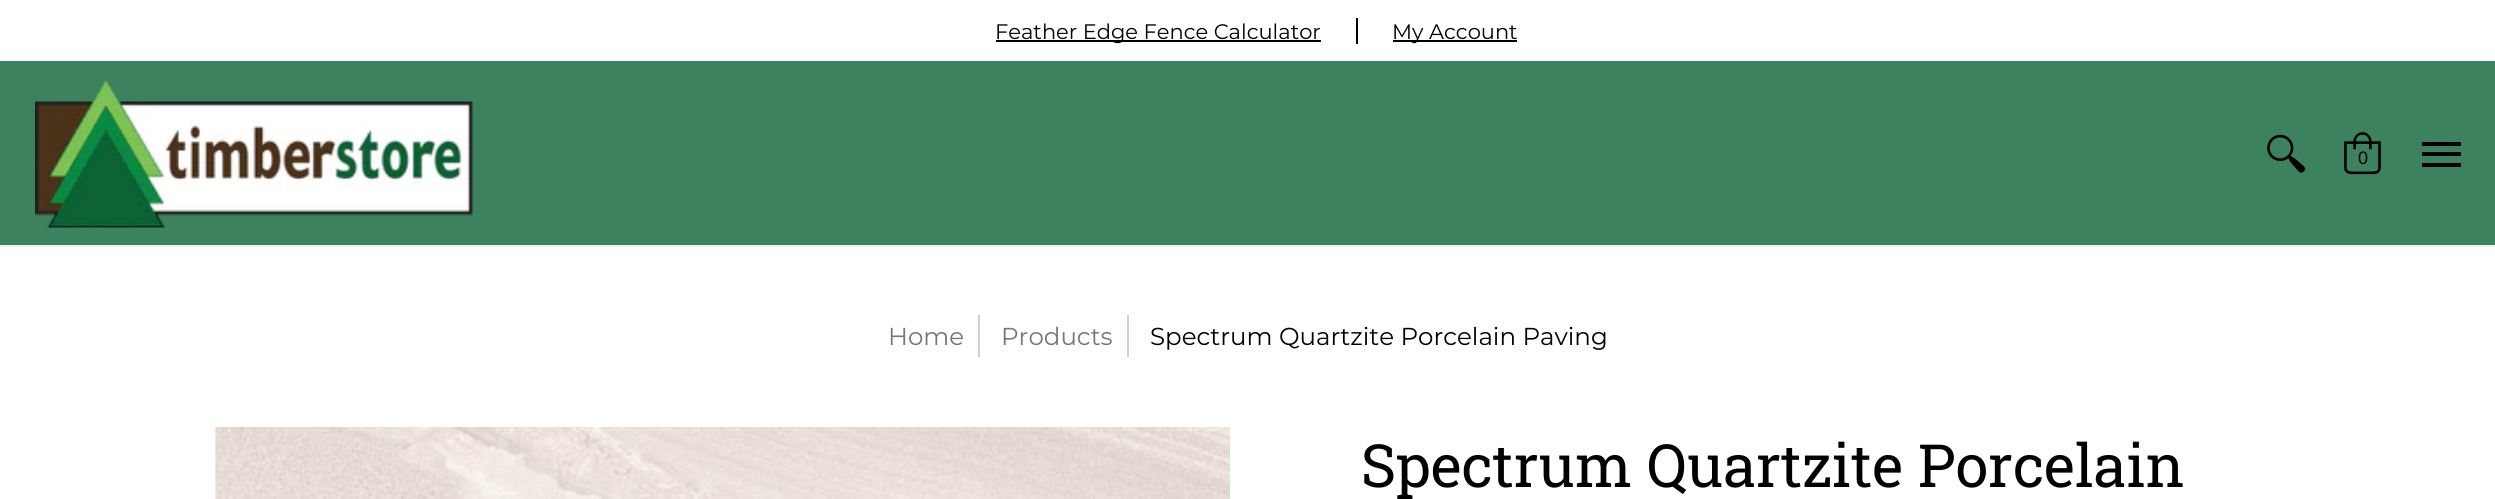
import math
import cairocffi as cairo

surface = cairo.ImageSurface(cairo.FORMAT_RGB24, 2495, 499)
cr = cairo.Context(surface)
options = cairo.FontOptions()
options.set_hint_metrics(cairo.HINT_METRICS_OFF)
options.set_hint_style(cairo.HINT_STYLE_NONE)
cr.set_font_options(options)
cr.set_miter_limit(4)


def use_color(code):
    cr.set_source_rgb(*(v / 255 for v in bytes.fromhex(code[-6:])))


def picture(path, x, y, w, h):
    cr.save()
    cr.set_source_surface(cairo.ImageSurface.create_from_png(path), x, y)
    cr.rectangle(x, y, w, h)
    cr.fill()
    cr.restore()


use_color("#ffffff")
cr.paint()
use_color("#000000")
cr.rectangle(996, 40, 325, 2)
cr.fill()
cr.select_font_face("Montserrat")
cr.set_font_size(21)
cr.move_to(995, 39)
cr.show_text("Feather Edge Fence Calculator")
cr.rectangle(1356, 18, 2, 26)
cr.fill()
cr.rectangle(1393, 40, 124, 2)
cr.fill()
cr.move_to(1392, 39)
cr.show_text("My Account")
use_color("#3d825e")
cr.rectangle(0, 61, 2495, 184)
cr.fill()
use_color("#edeef4")
cr.rectangle(0, 245, 2495, 2)
cr.fill()
picture("img1.png", 35, 79, 438, 149)
picture("img2.png", 2267, 134, 38, 39)
picture("img3.png", 2344, 132, 37, 43)
cr.select_font_face("Liberation Sans")
cr.set_font_size(18)
use_color("#000000")
cr.move_to(2358, 164)
cr.show_text("0")
cr.rectangle(2422, 142, 39, 4)
cr.fill()
cr.rectangle(2422, 163, 39, 4)
cr.fill()
cr.rectangle(2422, 152, 39, 4)
cr.fill()
cr.select_font_face("Montserrat")
cr.set_font_size(24.5)
use_color("#767676")
cr.move_to(888, 345)
cr.show_text("Home")
use_color("#cdd0e1")
cr.rectangle(978, 315, 2, 42)
cr.fill()
use_color("#767676")
cr.move_to(1001, 345)
cr.show_text("Products")
use_color("#cdd0e1")
cr.rectangle(1127, 315, 2, 42)
cr.fill()
use_color("#000000")
cr.move_to(1150, 345)
cr.show_text("Spectrum Quartzite Porcelain Paving")
picture("img4.png", 215, 427, 1015, 72)
cr.select_font_face("Roboto Slab")
cr.set_font_size(59.5)
cr.move_to(1361, 487)
cr.show_text("Spectrum Quartzite Porcelain")
surface.write_to_png("result.png")
